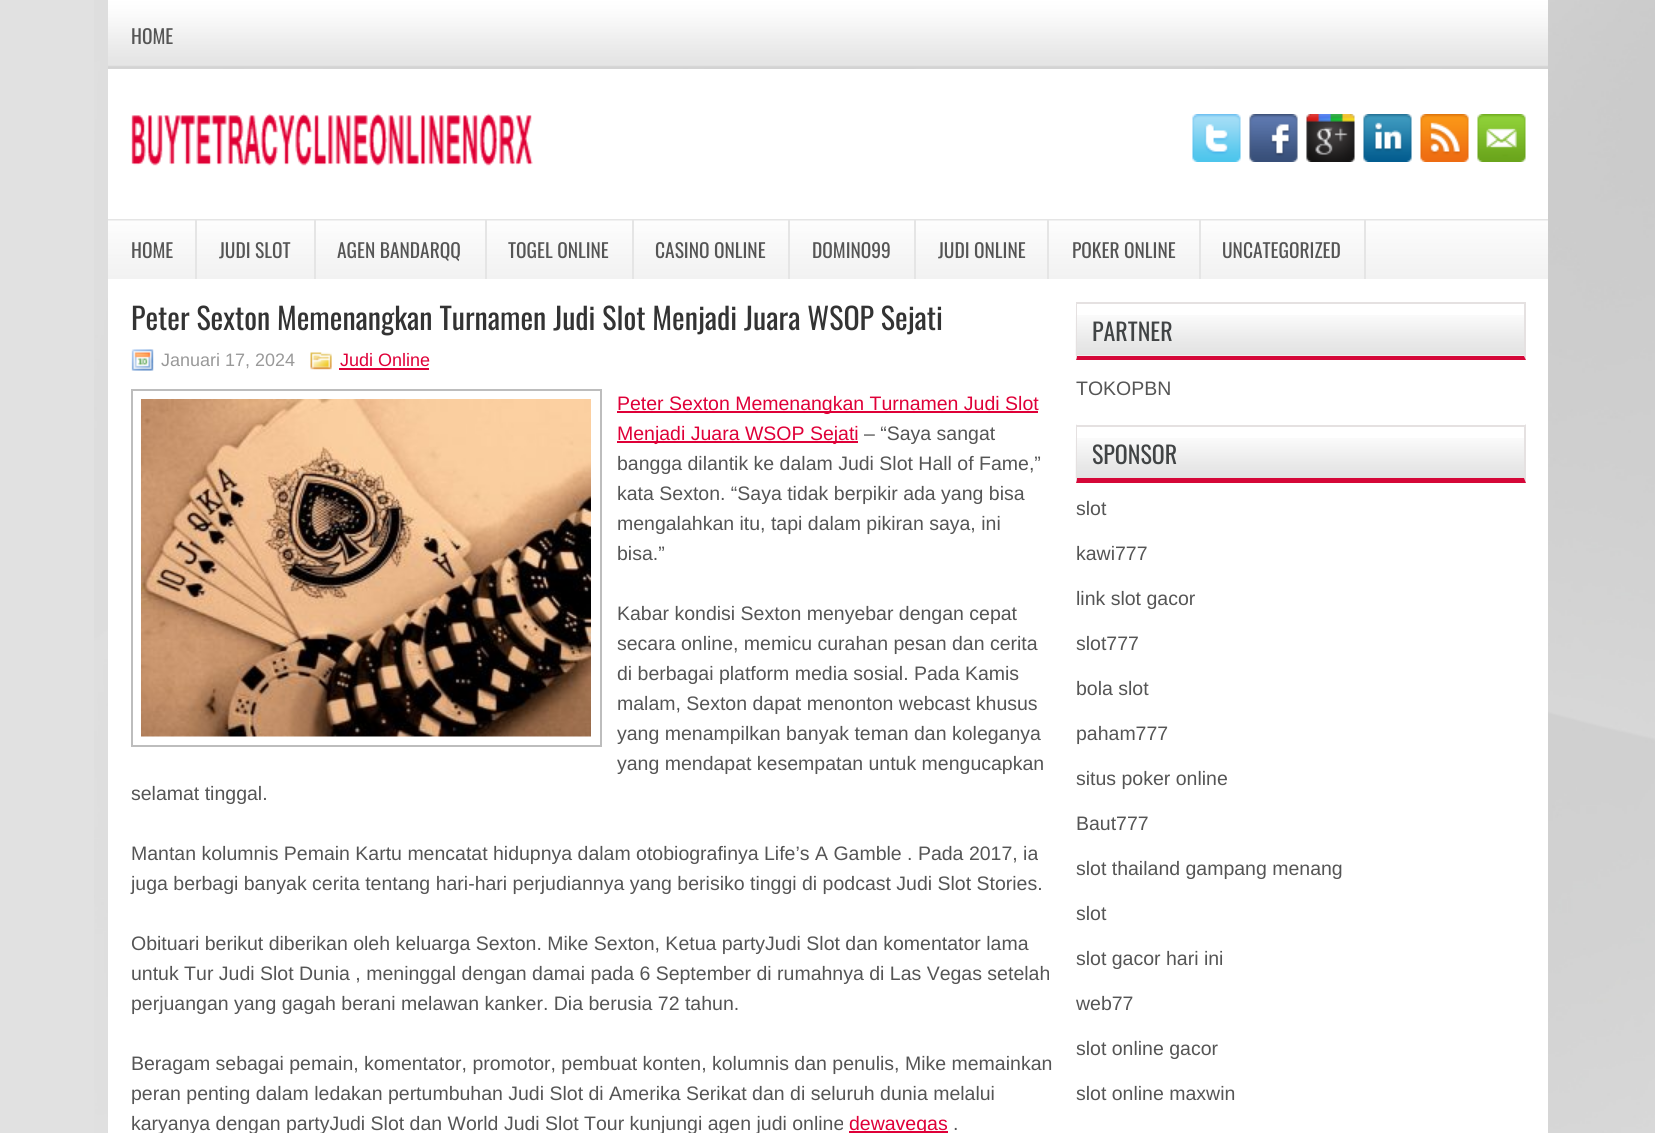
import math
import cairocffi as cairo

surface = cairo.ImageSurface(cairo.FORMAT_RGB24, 1655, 1133)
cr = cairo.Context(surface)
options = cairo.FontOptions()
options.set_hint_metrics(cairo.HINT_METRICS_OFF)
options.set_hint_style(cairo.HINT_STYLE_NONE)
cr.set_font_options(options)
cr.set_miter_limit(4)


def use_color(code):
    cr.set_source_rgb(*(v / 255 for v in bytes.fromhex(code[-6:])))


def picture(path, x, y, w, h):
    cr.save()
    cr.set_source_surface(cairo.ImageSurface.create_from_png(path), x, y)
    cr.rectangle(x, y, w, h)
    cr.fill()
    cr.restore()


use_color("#e1e1e1")
cr.paint()
picture("img1.png", 94, 0, 1561, 1133)
picture("img2.png", 108, 0, 1440, 69)
cr.select_font_face("Oswald")
cr.set_font_size(19.5)
use_color("#555555")
cr.move_to(131, 44)
cr.show_text("HOME")
use_color("#ffffff")
cr.rectangle(108, 69, 1440, 150)
cr.fill()
picture("img3.png", 131, 113, 402, 53)
picture("img4.png", 1192, 114, 49, 48)
picture("img5.png", 1249, 114, 49, 48)
picture("img6.png", 1306, 114, 49, 48)
picture("img7.png", 1363, 114, 49, 48)
picture("img8.png", 1420, 114, 49, 48)
picture("img9.png", 1477, 114, 49, 48)
picture("img10.png", 108, 219, 1440, 60)
use_color("#e5e5e5")
cr.rectangle(195, 219, 2, 60)
cr.fill()
use_color("#555555")
cr.move_to(131, 258)
cr.show_text("HOME")
use_color("#e5e5e5")
cr.rectangle(314, 219, 2, 60)
cr.fill()
use_color("#555555")
cr.move_to(219, 258)
cr.show_text("JUDI SLOT")
use_color("#e5e5e5")
cr.rectangle(485, 219, 2, 60)
cr.fill()
use_color("#555555")
cr.move_to(337, 258)
cr.show_text("AGEN BANDARQQ")
use_color("#e5e5e5")
cr.rectangle(632, 219, 2, 60)
cr.fill()
use_color("#555555")
cr.move_to(508, 258)
cr.show_text("TOGEL ONLINE")
use_color("#e5e5e5")
cr.rectangle(788, 219, 2, 60)
cr.fill()
use_color("#555555")
cr.move_to(655, 258)
cr.show_text("CASINO ONLINE")
use_color("#e5e5e5")
cr.rectangle(914, 219, 2, 60)
cr.fill()
use_color("#555555")
cr.move_to(812, 258)
cr.show_text("DOMINO99")
use_color("#e5e5e5")
cr.rectangle(1047, 219, 2, 60)
cr.fill()
use_color("#555555")
cr.move_to(938, 258)
cr.show_text("JUDI ONLINE")
use_color("#e5e5e5")
cr.rectangle(1199, 219, 2, 60)
cr.fill()
use_color("#555555")
cr.move_to(1072, 258)
cr.show_text("POKER ONLINE")
use_color("#e5e5e5")
cr.rectangle(1364, 219, 2, 60)
cr.fill()
use_color("#555555")
cr.move_to(1222, 258)
cr.show_text("UNCATEGORIZED")
use_color("#ffffff")
cr.rectangle(108, 279, 1440, 854)
cr.fill()
cr.set_font_size(30)
use_color("#333333")
cr.move_to(131, 330)
cr.show_text("Peter Sexton Memenangkan Turnamen Judi Slot Menjadi Juara WSOP Sejati")
picture("img11.png", 131, 349, 23, 22)
cr.select_font_face("Liberation Sans")
cr.set_font_size(18)
use_color("#999999")
cr.move_to(161, 366)
cr.show_text("Januari 17, 2024")
picture("img12.png", 310, 352, 22, 18)
use_color("#df0038")
cr.move_to(340, 366)
cr.show_text("Judi Online")
cr.rectangle(339, 368, 90, 2)
cr.fill()
cr.rectangle(132, 390, 469, 356)
use_color("#bdbdbd")
cr.stroke()
picture("img13.png", 141, 399, 450, 338)
use_color("#df0038")
cr.rectangle(617, 411, 421, 2)
cr.fill()
cr.set_font_size(19.5)
cr.move_to(617, 410)
cr.show_text("Peter Sexton Memenangkan Turnamen Judi Slot")
cr.rectangle(617, 441, 241, 2)
cr.fill()
cr.move_to(617, 440)
cr.show_text("Menjadi Juara WSOP Sejati")
use_color("#555555")
cr.move_to(864, 440)
cr.show_text("– “Saya sangat")
cr.move_to(617, 470)
cr.show_text("bangga dilantik ke dalam Judi Slot Hall of Fame,”")
cr.move_to(617, 500)
cr.show_text("kata Sexton. “Saya tidak berpikir ada yang bisa")
cr.move_to(617, 530)
cr.show_text("mengalahkan itu, tapi dalam pikiran saya, ini")
cr.move_to(617, 560)
cr.show_text("bisa.”")
cr.move_to(617, 620)
cr.show_text("Kabar kondisi Sexton menyebar dengan cepat")
cr.move_to(617, 650)
cr.show_text("secara online, memicu curahan pesan dan cerita")
cr.move_to(617, 680)
cr.show_text("di berbagai platform media sosial. Pada Kamis")
cr.move_to(617, 710)
cr.show_text("malam, Sexton dapat menonton webcast khusus")
cr.move_to(617, 740)
cr.show_text("yang menampilkan banyak teman dan koleganya")
cr.move_to(617, 770)
cr.show_text("yang mendapat kesempatan untuk mengucapkan")
cr.move_to(131, 800)
cr.show_text("selamat tinggal.")
cr.move_to(131, 860)
cr.show_text("Mantan kolumnis Pemain Kartu mencatat hidupnya dalam otobiografinya Life’s A Gamble . Pada 2017, ia")
cr.move_to(131, 890)
cr.show_text("juga berbagi banyak cerita tentang hari-hari perjudiannya yang berisiko tinggi di podcast Judi Slot Stories.")
cr.move_to(131, 950)
cr.show_text("Obituari berikut diberikan oleh keluarga Sexton. Mike Sexton, Ketua partyJudi Slot dan komentator lama")
cr.move_to(131, 980)
cr.show_text("untuk Tur Judi Slot Dunia , meninggal dengan damai pada 6 September di rumahnya di Las Vegas setelah")
cr.move_to(131, 1010)
cr.show_text("perjuangan yang gagah berani melawan kanker. Dia berusia 72 tahun.")
cr.move_to(131, 1070)
cr.show_text("Beragam sebagai pemain, komentator, promotor, pembuat konten, kolumnis dan penulis, Mike memainkan")
cr.move_to(131, 1100)
cr.show_text("peran penting dalam ledakan pertumbuhan Judi Slot di Amerika Serikat dan di seluruh dunia melalui")
cr.move_to(131, 1130)
cr.show_text("karyanya dengan partyJudi Slot dan World Judi Slot Tour kunjungi agen judi online")
use_color("#df0038")
cr.rectangle(849, 1131, 99, 2)
cr.fill()
cr.move_to(849, 1130)
cr.show_text("dewavegas")
use_color("#555555")
cr.move_to(953, 1130)
cr.show_text(".")
picture("img14.png", 1075, 315, 449, 41)
use_color("#e5e1e1")
cr.rectangle(1076, 302, 450, 2)
cr.fill()
cr.new_path()
cr.move_to(1526, 302)
cr.line_to(1526, 360)
cr.line_to(1524, 356)
cr.line_to(1524, 303)
cr.close_path()
cr.fill()
use_color("#d50738")
cr.new_path()
cr.move_to(1526, 360)
cr.line_to(1076, 360)
cr.line_to(1077, 356)
cr.line_to(1524, 356)
cr.close_path()
cr.fill()
use_color("#e5e1e1")
cr.new_path()
cr.move_to(1076, 360)
cr.line_to(1076, 302)
cr.line_to(1077, 303)
cr.line_to(1077, 356)
cr.close_path()
cr.fill()
cr.select_font_face("Oswald")
cr.set_font_size(24)
use_color("#414445")
cr.move_to(1092, 341)
cr.show_text("PARTNER")
cr.select_font_face("Liberation Sans")
cr.set_font_size(19.5)
use_color("#555555")
cr.move_to(1076, 395)
cr.show_text("TOKOPBN")
picture("img15.png", 1075, 438, 450, 41)
use_color("#e5e1e1")
cr.rectangle(1076, 425, 450, 2)
cr.fill()
cr.new_path()
cr.move_to(1526, 424)
cr.line_to(1526, 483)
cr.line_to(1524, 478)
cr.line_to(1524, 426)
cr.close_path()
cr.fill()
use_color("#d50738")
cr.new_path()
cr.move_to(1526, 483)
cr.line_to(1076, 483)
cr.line_to(1077, 478)
cr.line_to(1524, 478)
cr.close_path()
cr.fill()
use_color("#e5e1e1")
cr.new_path()
cr.move_to(1076, 483)
cr.line_to(1076, 424)
cr.line_to(1077, 426)
cr.line_to(1077, 478)
cr.close_path()
cr.fill()
cr.select_font_face("Oswald")
cr.set_font_size(24)
use_color("#414445")
cr.move_to(1092, 464)
cr.show_text("SPONSOR")
cr.select_font_face("Liberation Sans")
cr.set_font_size(19.5)
use_color("#555555")
cr.move_to(1076, 515)
cr.show_text("slot")
cr.move_to(1076, 560)
cr.show_text("kawi777")
cr.move_to(1076, 605)
cr.show_text("link slot gacor")
cr.move_to(1076, 650)
cr.show_text("slot777")
cr.move_to(1076, 695)
cr.show_text("bola slot")
cr.move_to(1076, 740)
cr.show_text("paham777")
cr.move_to(1076, 785)
cr.show_text("situs poker online")
cr.move_to(1076, 830)
cr.show_text("Baut777")
cr.move_to(1076, 875)
cr.show_text("slot thailand gampang menang")
cr.move_to(1076, 920)
cr.show_text("slot")
cr.move_to(1076, 965)
cr.show_text("slot gacor hari ini")
cr.move_to(1076, 1010)
cr.show_text("web77")
cr.move_to(1076, 1055)
cr.show_text("slot online gacor")
cr.move_to(1076, 1100)
cr.show_text("slot online maxwin")
surface.write_to_png("result.png")
